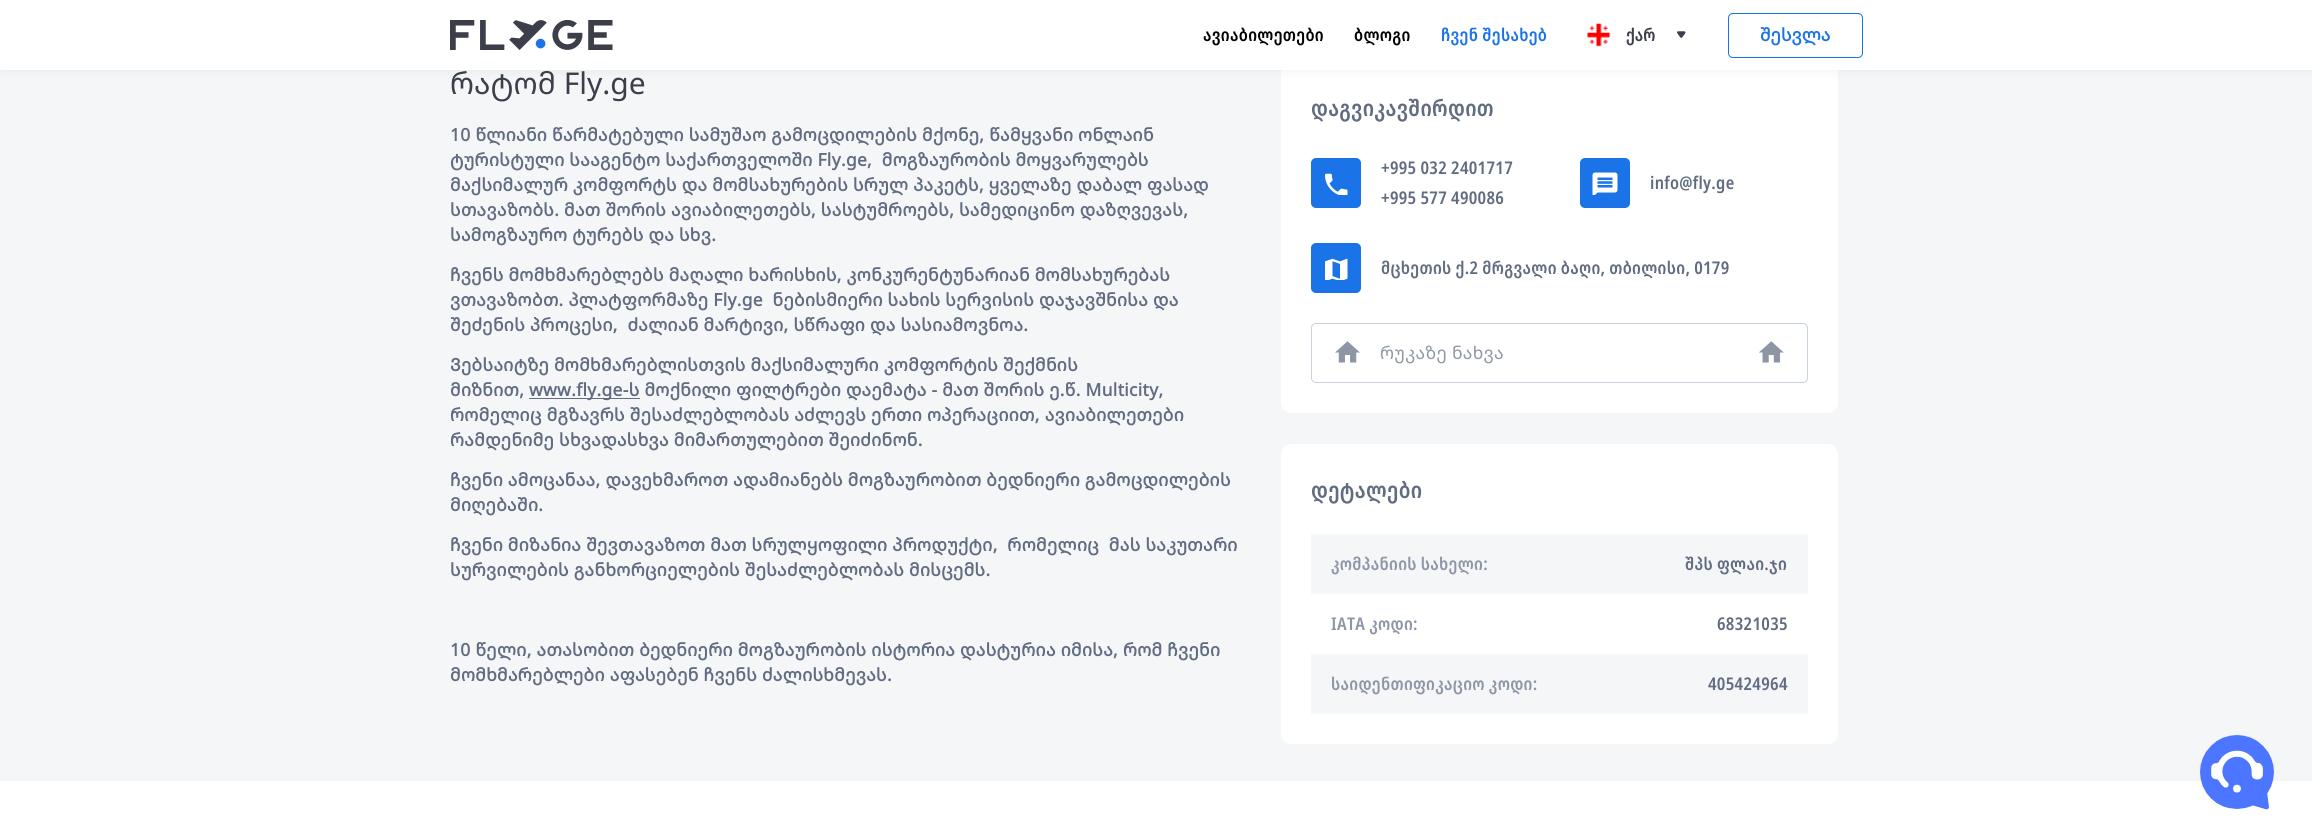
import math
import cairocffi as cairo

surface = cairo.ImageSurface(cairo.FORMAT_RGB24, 2312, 834)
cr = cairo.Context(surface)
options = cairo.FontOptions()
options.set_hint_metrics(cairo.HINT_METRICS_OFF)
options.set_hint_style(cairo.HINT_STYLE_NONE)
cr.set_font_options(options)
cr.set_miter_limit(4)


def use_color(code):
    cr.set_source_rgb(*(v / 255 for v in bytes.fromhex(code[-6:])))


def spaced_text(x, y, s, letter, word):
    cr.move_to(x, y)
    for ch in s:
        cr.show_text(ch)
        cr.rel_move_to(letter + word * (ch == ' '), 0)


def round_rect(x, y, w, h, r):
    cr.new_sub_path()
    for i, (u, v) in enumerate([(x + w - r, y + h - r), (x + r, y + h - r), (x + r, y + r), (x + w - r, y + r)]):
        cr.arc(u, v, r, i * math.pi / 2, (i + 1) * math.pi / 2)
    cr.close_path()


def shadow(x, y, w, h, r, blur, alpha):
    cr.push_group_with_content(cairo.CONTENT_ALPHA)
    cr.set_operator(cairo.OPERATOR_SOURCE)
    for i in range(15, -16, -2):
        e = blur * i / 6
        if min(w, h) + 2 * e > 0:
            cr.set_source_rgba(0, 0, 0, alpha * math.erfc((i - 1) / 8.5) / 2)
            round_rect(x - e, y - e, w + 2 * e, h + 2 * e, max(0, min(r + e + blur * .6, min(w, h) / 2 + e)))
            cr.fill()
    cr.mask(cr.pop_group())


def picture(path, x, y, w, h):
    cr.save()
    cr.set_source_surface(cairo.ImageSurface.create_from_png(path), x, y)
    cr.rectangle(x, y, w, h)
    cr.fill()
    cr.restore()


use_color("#ffffff")
cr.paint()
use_color("#f5f6f8")
cr.rectangle(0, 70, 2312, 711)
cr.fill()
use_color("#ffffff")
round_rect(1281, 63, 557, 350, 10)
cr.fill()
use_color("#000000")
shadow(0, 3, 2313, 70, 0, 5, 0.04)
use_color("#ffffff")
cr.rectangle(0, 0, 2312, 70)
cr.fill()
picture("img1.png", 450, 20, 163, 30)
cr.select_font_face("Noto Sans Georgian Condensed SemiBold")
cr.set_font_size(17.5)
use_color("#000000")
spaced_text(1203, 41, "ავიაბილეთები", 0.3, 0)
spaced_text(1354, 41, "ბლოგი", 0.3, 0)
use_color("#1a73e7")
spaced_text(1441, 41, "ჩვენ შესახებ", 0.3, 0)
picture("img2.png", 1587, 23, 24, 24)
use_color("#3c3f49")
cr.move_to(1626, 41)
cr.show_text("ქარ")
picture("img3.png", 1677, 31, 9, 7)
round_rect(1728.5, 13.5, 134, 44, 4.5)
use_color("#1a73e7")
cr.set_line_width(1)
cr.stroke()
cr.select_font_face("Noto Sans Georgian", cairo.FONT_SLANT_NORMAL, cairo.FONT_WEIGHT_BOLD)
cr.move_to(1760, 41)
cr.show_text("შესვლა")
cr.select_font_face("Noto Sans Georgian")
cr.set_font_size(30)
use_color("#3c3f49")
cr.move_to(450, 94)
cr.show_text("რატომ Fly.ge")
cr.select_font_face("Noto Sans Georgian", cairo.FONT_SLANT_NORMAL, cairo.FONT_WEIGHT_BOLD)
cr.set_font_size(17.5)
use_color("#616c81")
spaced_text(450, 141, "10 წლიანი წარმატებული სამუშაო გამოცდილების მქონე, წამყვანი ონლაინ", 0.3, 0)
spaced_text(450, 166, "ტურისტული სააგენტო საქართველოში Fly.ge,  მოგზაურობის მოყვარულებს", 0.3, 0)
spaced_text(450, 191, "მაქსიმალურ კომფორტს და მომსახურების სრულ პაკეტს, ყველაზე დაბალ ფასად", 0.3, 0)
spaced_text(450, 216, "სთავაზობს. მათ შორის ავიაბილეთებს, სასტუმროებს, სამედიცინო დაზღვევას,", 0.3, 0)
spaced_text(450, 241, "სამოგზაურო ტურებს და სხვ.", 0.3, 0)
spaced_text(450, 281, "ჩვენს მომხმარებლებს მაღალი ხარისხის, კონკურენტუნარიან მომსახურებას", 0.3, 0)
spaced_text(450, 306, "ვთავაზობთ. პლატფორმაზე Fly.ge  ნებისმიერი სახის სერვისის დაჯავშნისა და", 0.3, 0)
spaced_text(450, 331, "შეძენის პროცესი,  ძალიან მარტივი, სწრაფი და სასიამოვნოა.", 0.3, 0)
spaced_text(450, 371, "Ვებსაიტზე მომხმარებლისთვის მაქსიმალური კომფორტის შექმნის", 0.3, 0)
spaced_text(450, 396, "მიზნით,", 0.3, 0)
cr.rectangle(529, 398, 111, 1)
cr.fill()
spaced_text(529, 396, "www.fly.ge-ს მოქნილი ფილტრები დაემატა - მათ შორის ე.წ. Multicity,", 0.3, 0)
spaced_text(450, 421, "რომელიც მგზავრს შესაძლებლობას აძლევს ერთი ოპერაციით, ავიაბილეთები", 0.3, 0)
spaced_text(450, 446, "რამდენიმე სხვადასხვა მიმართულებით შეიძინონ.", 0.3, 0)
spaced_text(450, 486, "ჩვენი ამოცანაა, დავეხმაროთ ადამიანებს მოგზაურობით ბედნიერი გამოცდილების", 0.3, 0)
spaced_text(450, 511, "მიღებაში.", 0.3, 0)
spaced_text(450, 551, "ჩვენი მიზანია შევთავაზოთ მათ სრულყოფილი პროდუქტი,  რომელიც  მას საკუთარი", 0.3, 0)
spaced_text(450, 576, "სურვილების განხორციელების შესაძლებლობას მისცემს.", 0.3, 0)
spaced_text(450, 656, "10 წელი, ათასობით ბედნიერი მოგზაურობის ისტორია დასტურია იმისა, რომ ჩვენი", 0.3, 0)
spaced_text(450, 681, "მომხმარებლები აფასებენ ჩვენს ძალისხმევას.", 0.3, 0)
cr.select_font_face("Noto Sans Georgian Condensed SemiBold")
cr.set_font_size(22.5)
spaced_text(1311, 116, "დაგვიკავშირდით", 0.3, 0)
use_color("#1a73e7")
round_rect(1311, 158, 50, 50, 5)
cr.fill()
picture("img4.png", 1325, 173, 23, 22)
cr.set_font_size(17.5)
use_color("#616c81")
spaced_text(1381, 174, "+995 032 2401717", 0.3, 0)
spaced_text(1381, 204, "+995 577 490086", 0.3, 0)
use_color("#1a73e7")
round_rect(1580, 158, 50, 50, 5)
cr.fill()
picture("img5.png", 1592, 172, 26, 23)
use_color("#616c81")
spaced_text(1650, 189, "info@fly.ge", 0.3, 0)
use_color("#1a73e7")
round_rect(1311, 243, 50, 50, 5)
cr.fill()
picture("img6.png", 1325, 258, 23, 22)
use_color("#616c81")
spaced_text(1381, 274, "მცხეთის ქ.2 მრგვალი ბაღი, თბილისი, 0179", 0.3, 0)
round_rect(1311.5, 323.5, 496, 59, 4.5)
use_color("#c8d2dc")
cr.stroke()
picture("img7.png", 1335, 341, 25, 22)
cr.select_font_face("Noto Sans Georgian")
use_color("#8e96a5")
spaced_text(1380, 359, "რუკაზე ნახვა", 0.3, 0)
picture("img8.png", 1759, 341, 25, 22)
use_color("#ffffff")
round_rect(1281, 444, 557, 300, 10)
cr.fill()
cr.select_font_face("Noto Sans Georgian Condensed SemiBold")
cr.set_font_size(22.5)
use_color("#616c81")
spaced_text(1311, 498, "დეტალები", 0.3, 0)
use_color("#f4f6f8")
cr.rectangle(1311, 534, 497, 60)
cr.fill()
cr.set_font_size(17.5)
use_color("#8e96a5")
spaced_text(1331, 570, "კომპანიის სახელი:", 0.3, 0)
use_color("#616c81")
spaced_text(1685, 570, "შპს ფლაი.ჯი", 0.3, 0)
use_color("#8e96a5")
spaced_text(1331, 630, "IATA კოდი:", 0.3, 0)
use_color("#616c81")
spaced_text(1717, 630, "68321035", 0.3, 0)
use_color("#f4f6f8")
cr.rectangle(1311, 654, 497, 60)
cr.fill()
use_color("#8e96a5")
spaced_text(1331, 690, "საიდენთიფიკაციო კოდი:", 0.3, 0)
use_color("#616c81")
spaced_text(1708, 690, "405424964", 0.3, 0)
picture("img9.png", 2200, 735, 74, 75)
surface.write_to_png("result.png")
